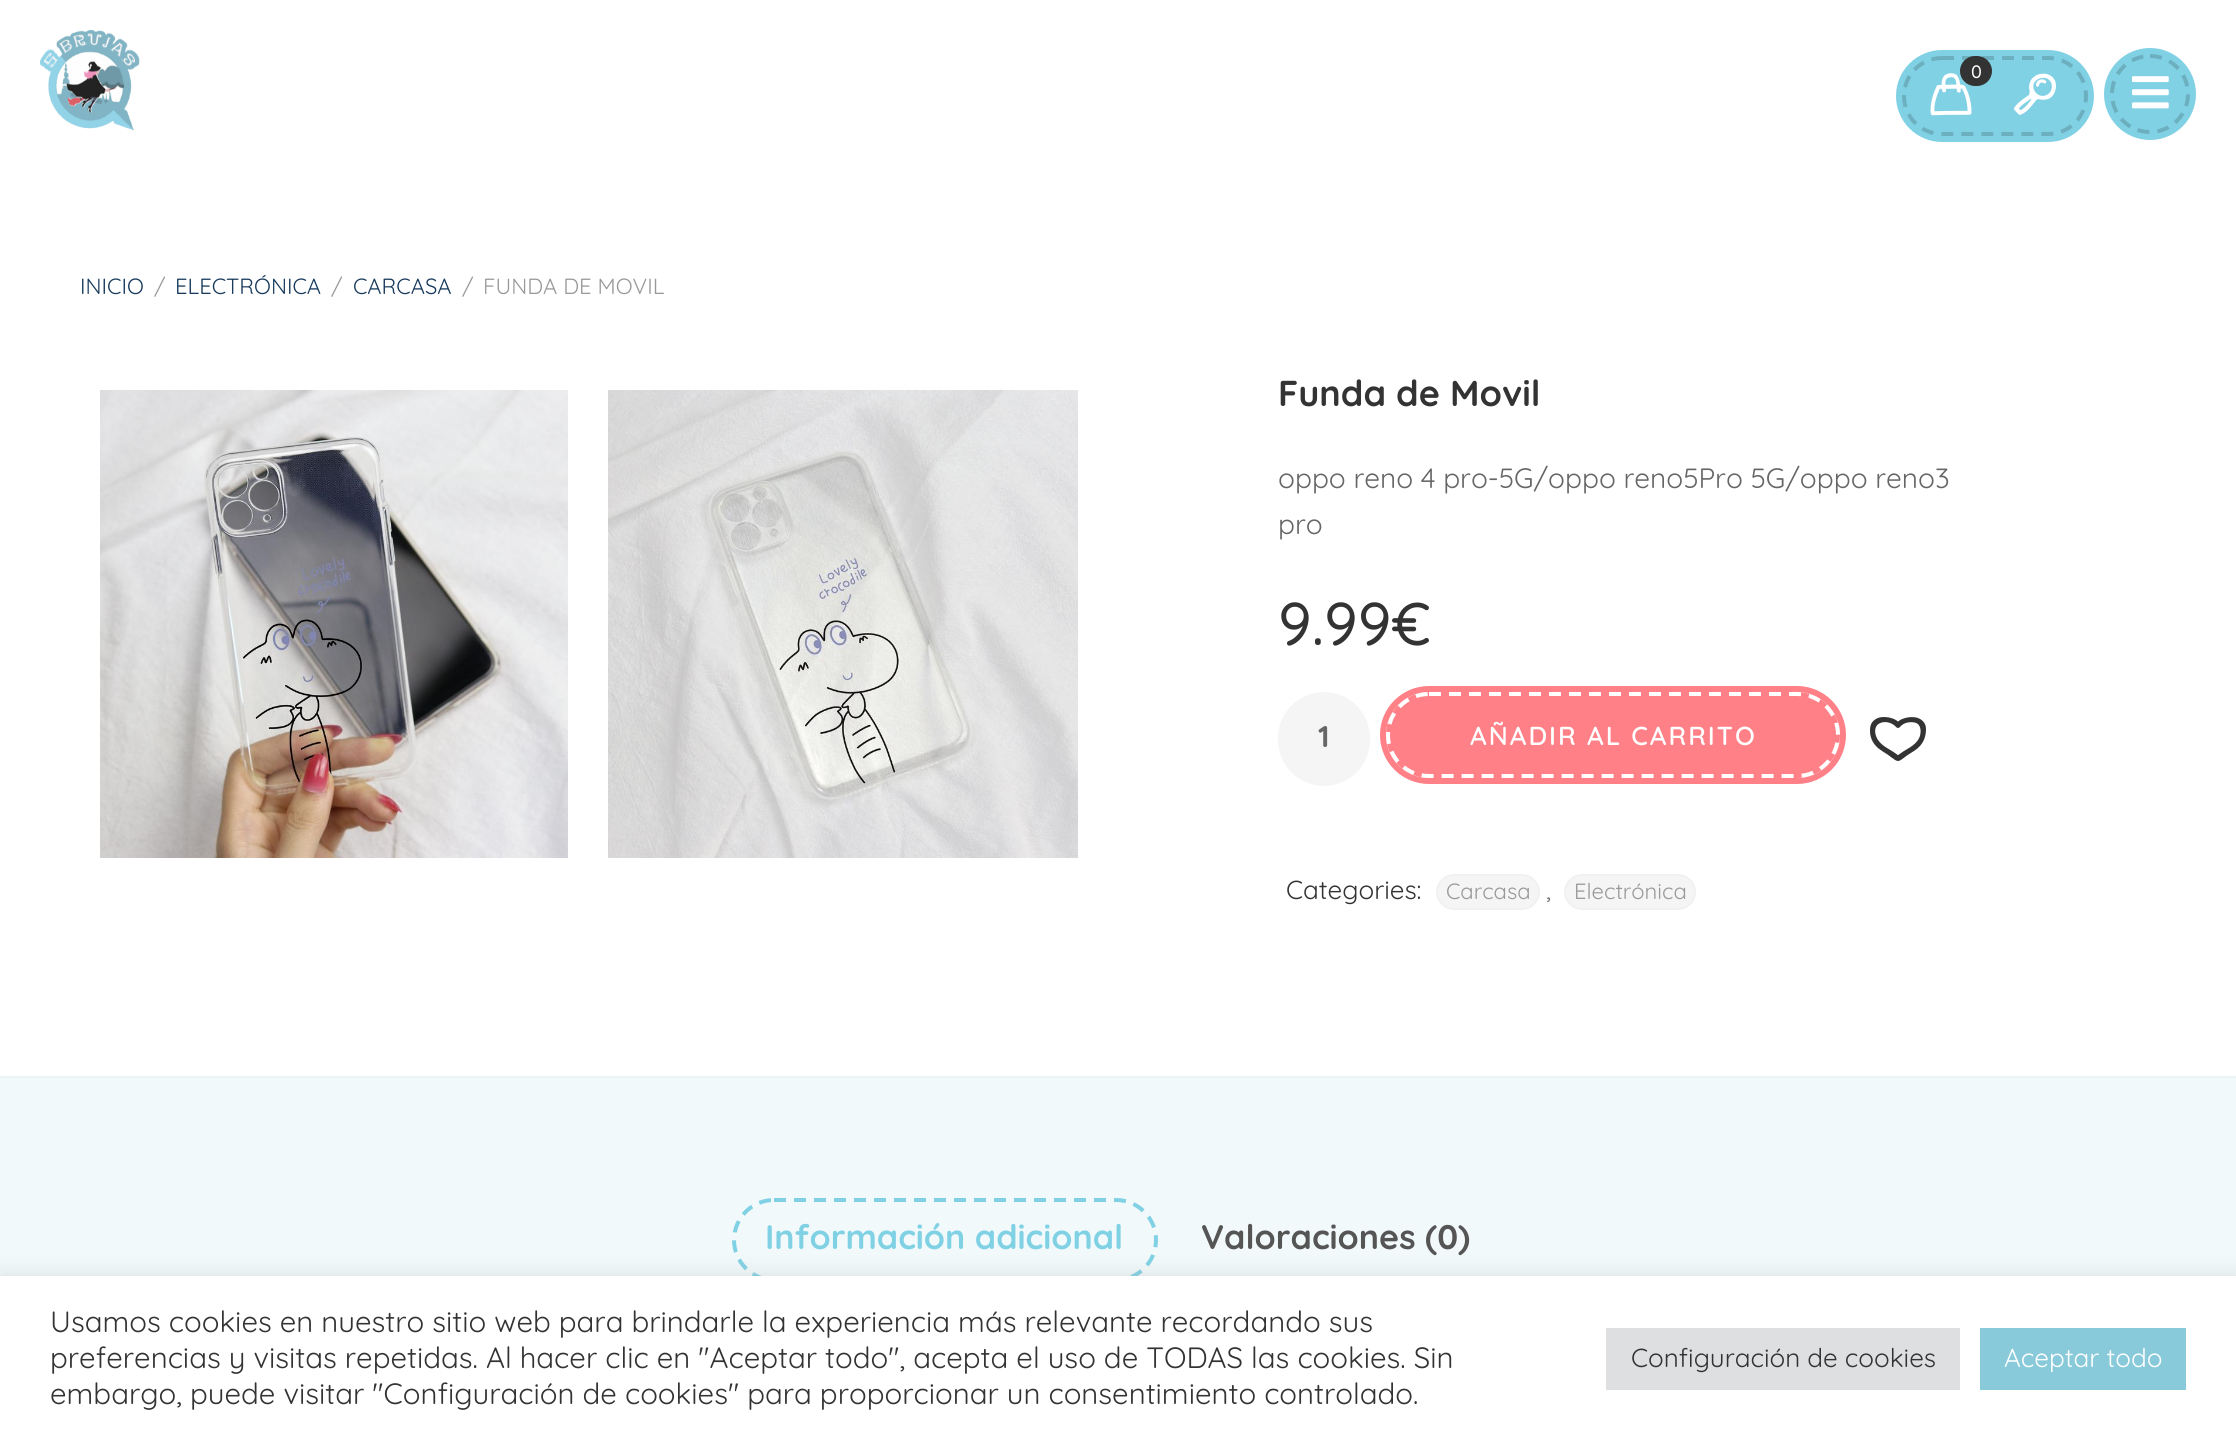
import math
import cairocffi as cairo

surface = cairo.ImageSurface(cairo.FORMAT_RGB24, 2236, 1439)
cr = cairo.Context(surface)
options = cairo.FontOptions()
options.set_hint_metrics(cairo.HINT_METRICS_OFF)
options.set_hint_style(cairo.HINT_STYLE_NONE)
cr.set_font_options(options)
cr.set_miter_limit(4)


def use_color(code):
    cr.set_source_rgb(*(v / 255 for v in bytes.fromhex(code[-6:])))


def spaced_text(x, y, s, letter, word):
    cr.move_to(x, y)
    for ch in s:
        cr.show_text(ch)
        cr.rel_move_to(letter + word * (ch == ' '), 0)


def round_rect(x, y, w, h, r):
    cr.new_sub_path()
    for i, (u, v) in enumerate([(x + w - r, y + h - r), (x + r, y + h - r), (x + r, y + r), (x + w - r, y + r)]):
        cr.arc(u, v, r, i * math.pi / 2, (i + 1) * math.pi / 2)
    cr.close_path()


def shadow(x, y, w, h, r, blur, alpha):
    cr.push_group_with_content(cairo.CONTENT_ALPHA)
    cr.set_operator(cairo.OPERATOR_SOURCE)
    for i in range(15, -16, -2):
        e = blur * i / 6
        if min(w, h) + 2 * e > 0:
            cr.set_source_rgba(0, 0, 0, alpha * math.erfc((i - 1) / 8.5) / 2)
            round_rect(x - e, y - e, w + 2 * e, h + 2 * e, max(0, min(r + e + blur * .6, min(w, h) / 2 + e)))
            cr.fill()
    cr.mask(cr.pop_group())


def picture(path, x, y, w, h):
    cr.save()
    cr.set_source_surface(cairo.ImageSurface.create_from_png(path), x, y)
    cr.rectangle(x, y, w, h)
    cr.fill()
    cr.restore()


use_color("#ffffff")
cr.paint()
picture("img1.png", 40, 30, 100, 100)
use_color("#81d1e5")
round_rect(1896, 50, 198, 92, 46)
cr.fill()
cr.new_path()
cr.move_to(1942, 58)
cr.line_to(2048, 58)
cr.curve_to(2069, 58, 2086, 75, 2086, 96)
cr.curve_to(2086, 117, 2069, 134, 2048, 134)
cr.line_to(1942, 134)
cr.curve_to(1921, 134, 1904, 117, 1904, 96)
cr.curve_to(1904, 75, 1921, 58, 1942, 58)
cr.close_path()
use_color("#6cb0c0")
cr.set_line_width(4)
cr.set_dash([12, 8])
cr.stroke()
picture("img2.png", 1930, 73, 42, 43)
use_color("#333333")
round_rect(1960, 56, 32, 30, 15)
cr.fill()
cr.select_font_face("Quicksand Medium")
cr.set_font_size(18)
use_color("#ffffff")
cr.move_to(1971, 78)
cr.show_text("0")
picture("img3.png", 2014, 73, 42, 42)
use_color("#81d1e5")
cr.arc(2150, 94, 46, 0, 2 * math.pi)
cr.fill()
picture("img4.png", 2132, 76, 37, 33)
cr.new_path()
cr.move_to(2150, 56)
cr.curve_to(2171, 56, 2188, 73, 2188, 94)
cr.curve_to(2188, 115, 2171, 132, 2150, 132)
cr.curve_to(2129, 132, 2112, 115, 2112, 94)
cr.curve_to(2112, 73, 2129, 56, 2150, 56)
cr.close_path()
use_color("#6cb0c0")
cr.stroke()
cr.select_font_face("Quicksand")
cr.set_font_size(22)
use_color("#183a5c")
cr.move_to(80, 294)
cr.show_text("INICIO")
use_color("#999999")
cr.move_to(154, 294)
cr.show_text("/")
use_color("#183a5c")
cr.move_to(175, 294)
cr.show_text("ELECTRÓNICA")
use_color("#999999")
cr.move_to(331, 294)
cr.show_text("/")
use_color("#183a5c")
cr.move_to(353, 294)
cr.show_text("CARCASA")
use_color("#999999")
cr.move_to(462, 294)
cr.show_text("/")
cr.move_to(483, 294)
cr.show_text("FUNDA DE MOVIL")
picture("img5.png", 100, 390, 468, 468)
picture("img6.png", 608, 390, 470, 468)
cr.select_font_face("Quicksand", cairo.FONT_SLANT_NORMAL, cairo.FONT_WEIGHT_BOLD)
cr.set_font_size(36)
use_color("#333333")
cr.move_to(1278, 406)
cr.show_text("Funda de Movil")
cr.select_font_face("Quicksand")
cr.set_font_size(28)
use_color("#666666")
cr.move_to(1278, 488)
cr.show_text("oppo reno 4 pro-5G/oppo reno5Pro 5G/oppo reno3")
cr.move_to(1278, 534)
cr.show_text("pro")
cr.select_font_face("Quicksand Medium")
cr.set_font_size(60)
use_color("#333333")
cr.move_to(1278, 645)
cr.show_text("9.99€")
use_color("#f5f5f5")
round_rect(1278, 692, 92, 94, 46)
cr.fill()
cr.select_font_face("Quicksand", cairo.FONT_SLANT_NORMAL, cairo.FONT_WEIGHT_BOLD)
cr.set_font_size(30)
use_color("#666666")
cr.move_to(1318, 747)
cr.show_text("1")
round_rect(1383, 689, 460, 92, 46)
use_color("#ff8087")
cr.set_line_width(6)
cr.set_dash([])
cr.stroke()
round_rect(1386, 692, 454, 86, 43)
cr.fill()
cr.new_path()
cr.move_to(1429, 694)
cr.line_to(1797, 694)
cr.curve_to(1819.5, 694, 1838, 712.5, 1838, 735)
cr.curve_to(1838, 757.5, 1819.5, 776, 1797, 776)
cr.line_to(1429, 776)
cr.curve_to(1406.5, 776, 1388, 757.5, 1388, 735)
cr.curve_to(1388, 712.5, 1406.5, 694, 1429, 694)
cr.close_path()
use_color("#ffffff")
cr.set_line_width(4)
cr.set_dash([12, 8])
cr.stroke()
cr.select_font_face("Quicksand SemiBold")
cr.set_font_size(26)
spaced_text(1470, 745, "AÑADIR AL CARRITO", 2, 0)
picture("img7.png", 1870, 717, 56, 44)
cr.select_font_face("Quicksand")
use_color("#333333")
cr.move_to(1286, 899)
cr.show_text("Categories:")
use_color("#f5f5f5")
round_rect(1437, 875, 102, 34, 17)
cr.fill_preserve()
use_color("#f1f1f1")
cr.set_line_width(2)
cr.set_dash([])
cr.stroke()
cr.set_font_size(22)
use_color("#999999")
cr.move_to(1446, 899)
cr.show_text("Carcasa")
cr.set_font_size(26)
use_color("#777777")
cr.move_to(1546, 899)
cr.show_text(",")
use_color("#f5f5f5")
round_rect(1565, 875, 130, 34, 17)
cr.fill_preserve()
use_color("#f1f1f1")
cr.stroke()
cr.set_font_size(22)
use_color("#999999")
cr.move_to(1574, 899)
cr.show_text("Electrónica")
use_color("#f1f9fb")
cr.rectangle(0, 1078, 2236, 198)
cr.fill()
use_color("#ecf5f6")
cr.rectangle(0, 1076, 2236, 2)
cr.fill()
cr.new_path()
cr.move_to(774, 1200)
cr.line_to(1116, 1200)
cr.curve_to(1138, 1200, 1156, 1218, 1156, 1240)
cr.curve_to(1156, 1262, 1138, 1280, 1116, 1280)
cr.line_to(774, 1280)
cr.curve_to(752, 1280, 734, 1262, 734, 1240)
cr.curve_to(734, 1218, 752, 1200, 774, 1200)
cr.close_path()
use_color("#81d1e5")
cr.set_line_width(4)
cr.set_dash([12, 8])
cr.stroke()
cr.select_font_face("Quicksand", cairo.FONT_SLANT_NORMAL, cairo.FONT_WEIGHT_BOLD)
cr.set_font_size(34)
cr.move_to(765, 1249)
cr.show_text("Información adicional")
use_color("#555555")
cr.move_to(1201, 1249)
cr.show_text("Valoraciones (0)")
use_color("#acabab")
shadow(0, 1274, 2236, 164, 0, 10, 0.3)
use_color("#ffffff")
cr.rectangle(0, 1276, 2236, 163)
cr.fill()
cr.select_font_face("Quicksand")
cr.set_font_size(29.35)
use_color("#333333")
cr.move_to(50, 1332)
cr.show_text("Usamos cookies en nuestro sitio web para brindarle la experiencia más relevante recordando sus")
cr.move_to(50, 1368)
cr.show_text("preferencias y visitas repetidas. Al hacer clic en \"Aceptar todo\", acepta el uso de TODAS las cookies. Sin")
cr.move_to(50, 1404)
cr.show_text("embargo, puede visitar \"Configuración de cookies\" para proporcionar un consentimiento controlado.")
use_color("#dedfe0")
cr.rectangle(1606, 1328, 354, 62)
cr.fill()
cr.set_font_size(26)
use_color("#333333")
cr.move_to(1631, 1367)
cr.show_text("Configuración de cookies")
use_color("#88cada")
cr.rectangle(1980, 1328, 206, 62)
cr.fill()
use_color("#ffffff")
cr.move_to(2004, 1367)
cr.show_text("Aceptar todo")
surface.write_to_png("result.png")
